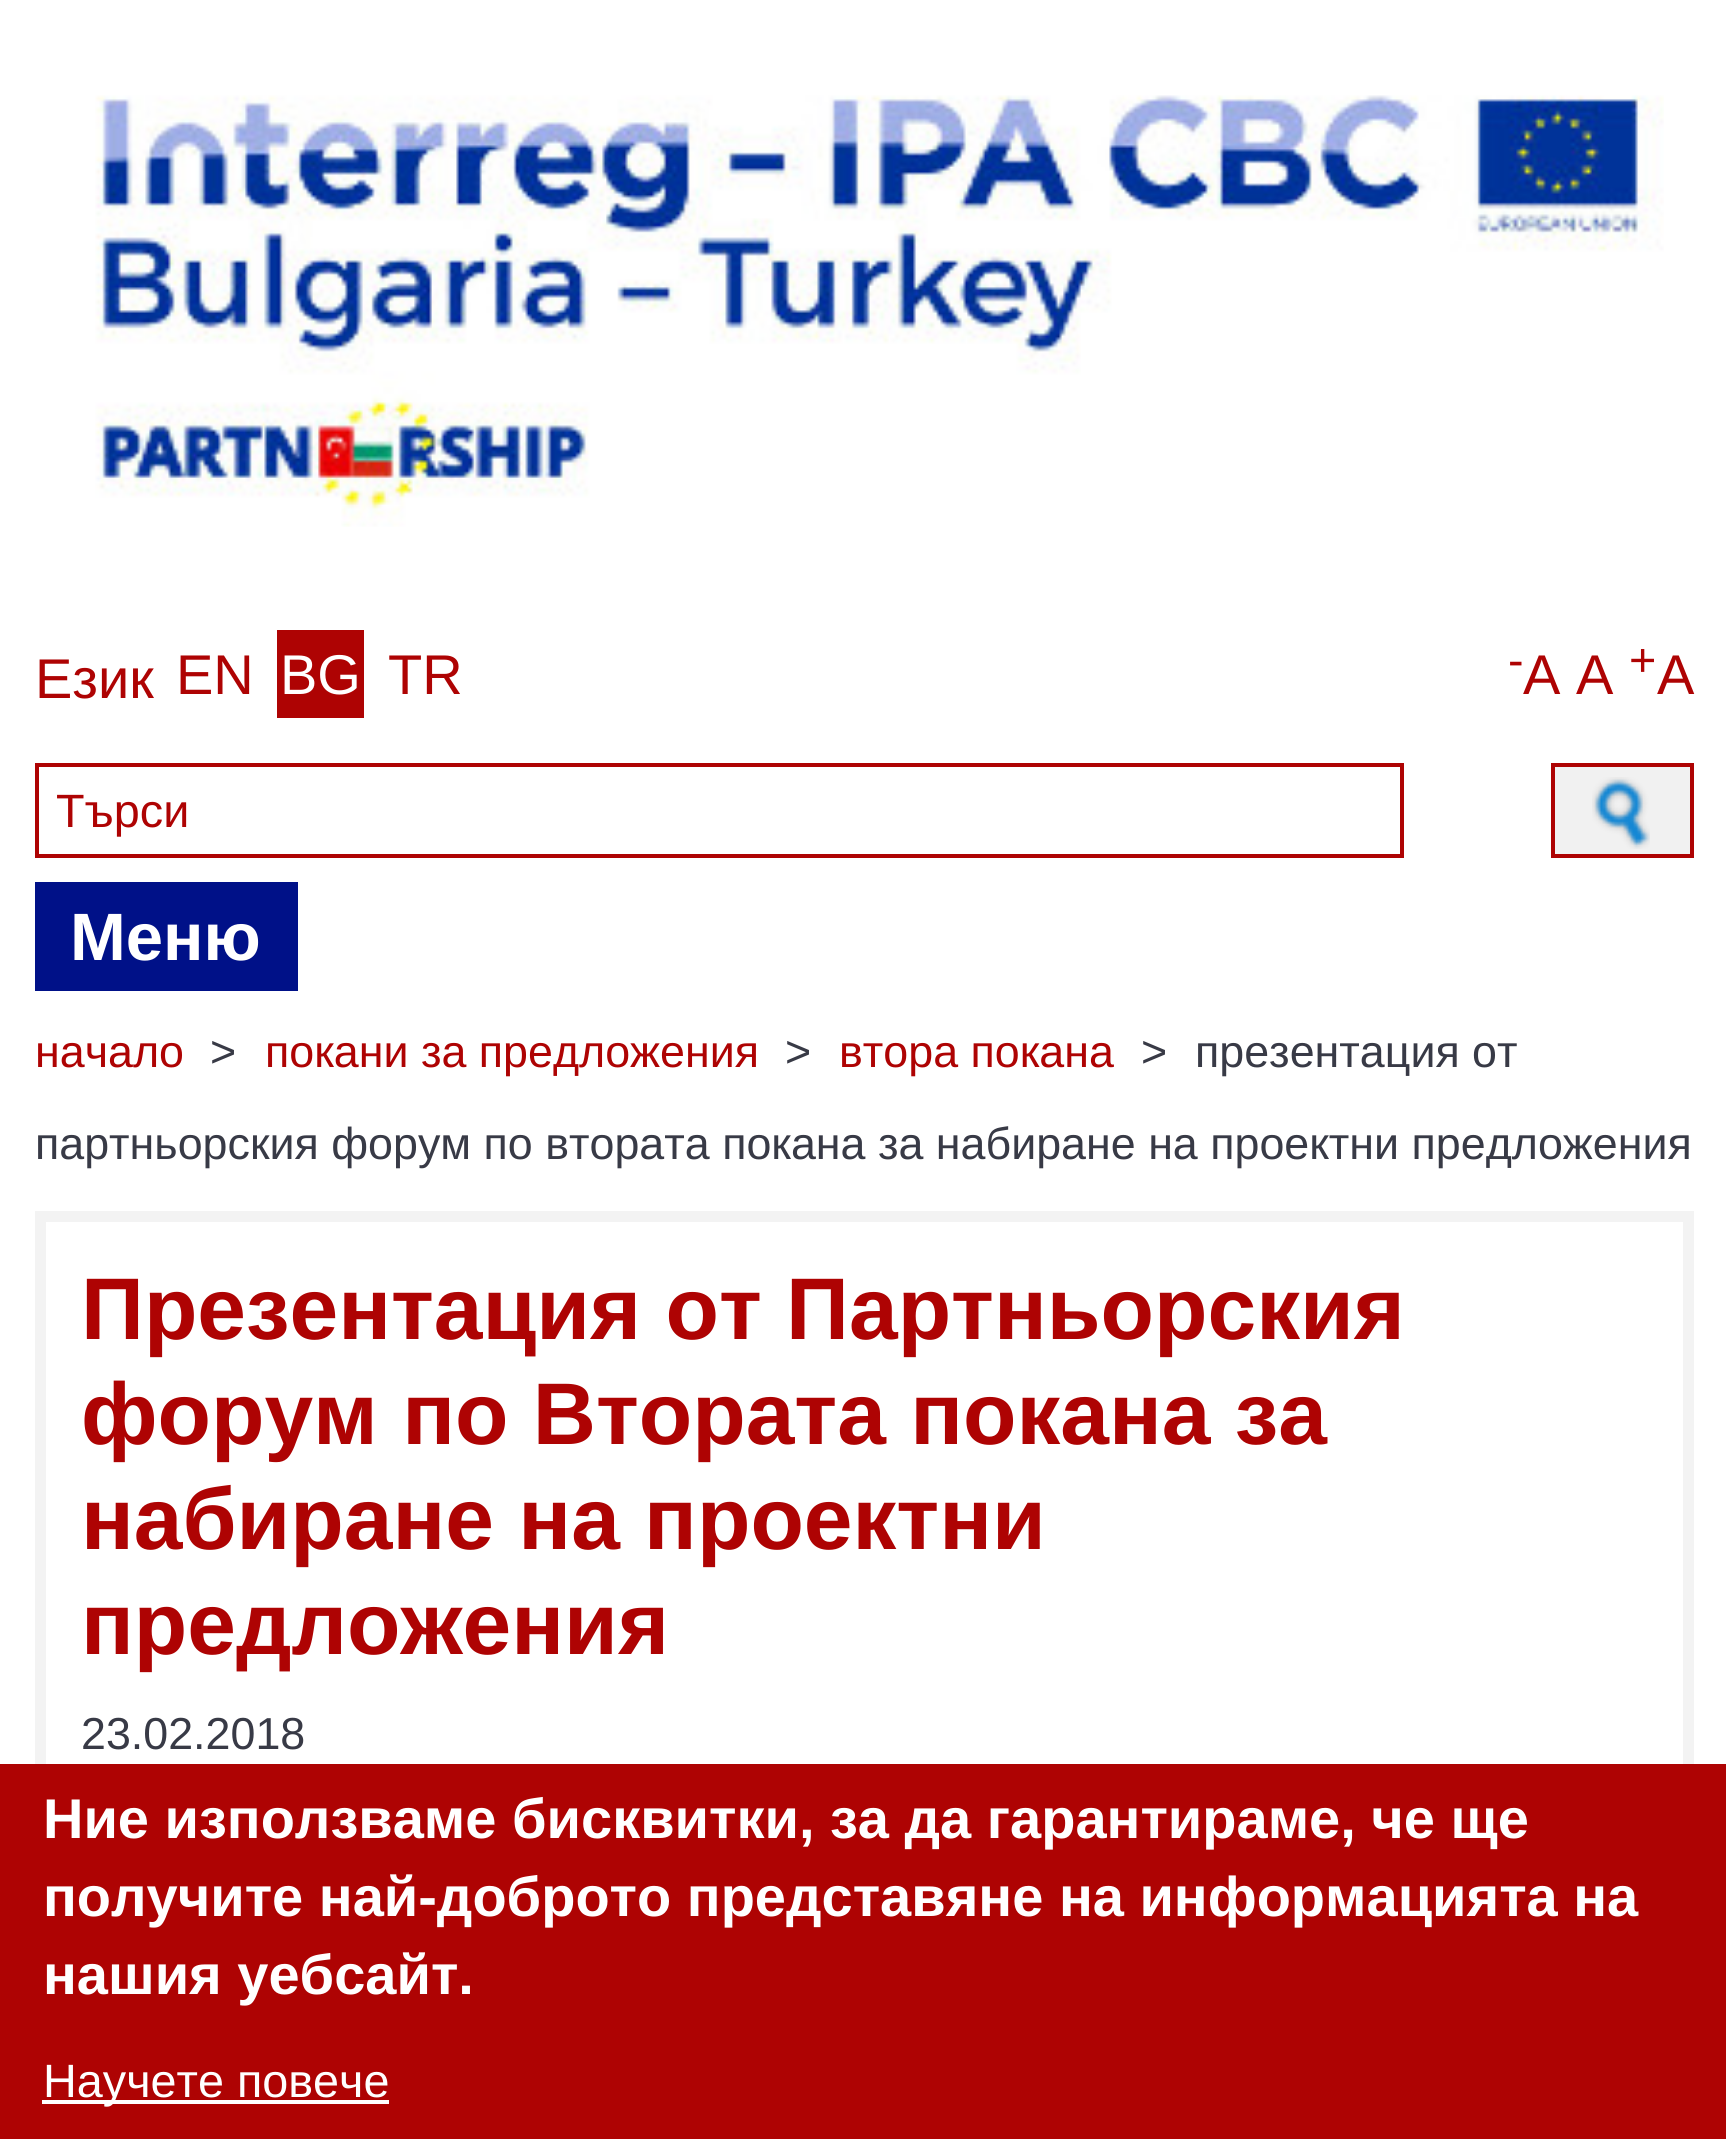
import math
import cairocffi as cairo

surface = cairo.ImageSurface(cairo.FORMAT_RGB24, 1726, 2139)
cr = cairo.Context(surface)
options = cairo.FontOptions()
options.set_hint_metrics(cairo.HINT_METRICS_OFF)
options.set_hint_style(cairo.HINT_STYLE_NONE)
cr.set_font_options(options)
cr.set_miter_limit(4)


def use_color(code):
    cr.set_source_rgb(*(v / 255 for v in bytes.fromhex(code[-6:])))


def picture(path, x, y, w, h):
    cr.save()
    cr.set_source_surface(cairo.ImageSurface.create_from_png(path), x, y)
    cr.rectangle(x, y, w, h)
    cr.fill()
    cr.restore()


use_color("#ffffff")
cr.paint()
picture("img1.png", 95, 95, 1569, 432)
cr.select_font_face("Liberation Sans")
cr.set_font_size(56)
use_color("#ae0303")
cr.move_to(35, 698)
cr.show_text("Език")
cr.move_to(176, 694)
cr.show_text("EN")
cr.rectangle(277, 630, 87, 88)
cr.fill()
use_color("#ffffff")
cr.move_to(280, 694)
cr.show_text("BG")
use_color("#ae0303")
cr.move_to(388, 694)
cr.show_text("TR")
cr.set_font_size(46.75)
cr.move_to(1508, 676)
cr.show_text("-")
cr.set_font_size(56)
cr.move_to(1523, 694)
cr.show_text("A A")
cr.set_font_size(46.75)
cr.move_to(1629, 676)
cr.show_text("+")
cr.set_font_size(56)
cr.move_to(1657, 694)
cr.show_text("A")
cr.rectangle(37, 765, 1365, 91)
cr.set_line_width(4)
cr.stroke()
cr.set_font_size(46.75)
cr.move_to(56, 827)
cr.show_text("Търси")
use_color("#f1f1f1")
cr.rectangle(1553, 765, 139, 91)
cr.fill_preserve()
use_color("#ae0303")
cr.stroke()
picture("img2.png", 1592, 777, 58, 72)
use_color("#001188")
cr.rectangle(35, 882, 263, 109)
cr.fill()
cr.select_font_face("Liberation Sans", cairo.FONT_SLANT_NORMAL, cairo.FONT_WEIGHT_BOLD)
cr.set_font_size(67)
use_color("#ffffff")
cr.move_to(70, 960)
cr.show_text("Меню")
cr.select_font_face("Liberation Sans")
cr.set_font_size(44.8)
use_color("#ae0303")
cr.move_to(35, 1067)
cr.show_text("начало")
use_color("#383a46")
cr.move_to(210, 1067)
cr.show_text(">")
use_color("#ae0303")
cr.move_to(265, 1067)
cr.show_text("покани за предложения")
use_color("#383a46")
cr.move_to(785, 1067)
cr.show_text(">")
use_color("#ae0303")
cr.move_to(839, 1067)
cr.show_text("втора покана")
use_color("#383a46")
cr.move_to(1141, 1067)
cr.show_text(">")
cr.move_to(1195, 1067)
cr.show_text("презентация от")
cr.move_to(35, 1159)
cr.show_text("партньорския форум по втората покана за набиране на проектни предложения")
cr.rectangle(40.5, 1216.5, 1648, 868)
use_color("#f3f3f3")
cr.set_line_width(11)
cr.stroke()
cr.select_font_face("Liberation Sans", cairo.FONT_SLANT_NORMAL, cairo.FONT_WEIGHT_BOLD)
cr.set_font_size(87.5)
use_color("#ae0303")
cr.move_to(81, 1339)
cr.show_text("Презентация от Партньорския")
cr.move_to(81, 1444)
cr.show_text("форум по Втората покана за")
cr.move_to(81, 1549)
cr.show_text("набиране на проектни")
cr.move_to(81, 1654)
cr.show_text("предложения")
cr.select_font_face("Liberation Sans")
cr.set_font_size(44.8)
use_color("#383a46")
cr.move_to(81, 1749)
cr.show_text("23.02.2018")
use_color("#ae0303")
cr.rectangle(0, 1764, 1726, 375)
cr.fill()
cr.select_font_face("Liberation Sans", cairo.FONT_SLANT_NORMAL, cairo.FONT_WEIGHT_BOLD)
cr.set_font_size(56)
use_color("#ffffff")
cr.move_to(43, 1838)
cr.show_text("Ние използваме бисквитки, за да гарантираме, че ще")
cr.move_to(43, 1916)
cr.show_text("получите най-доброто представяне на информацията на")
cr.move_to(43, 1994)
cr.show_text("нашия уебсайт.")
cr.rectangle(42, 2100, 347, 4)
cr.fill()
cr.select_font_face("Liberation Sans")
cr.set_font_size(46.75)
cr.move_to(43, 2097)
cr.show_text("Научете повече")
surface.write_to_png("result.png")
